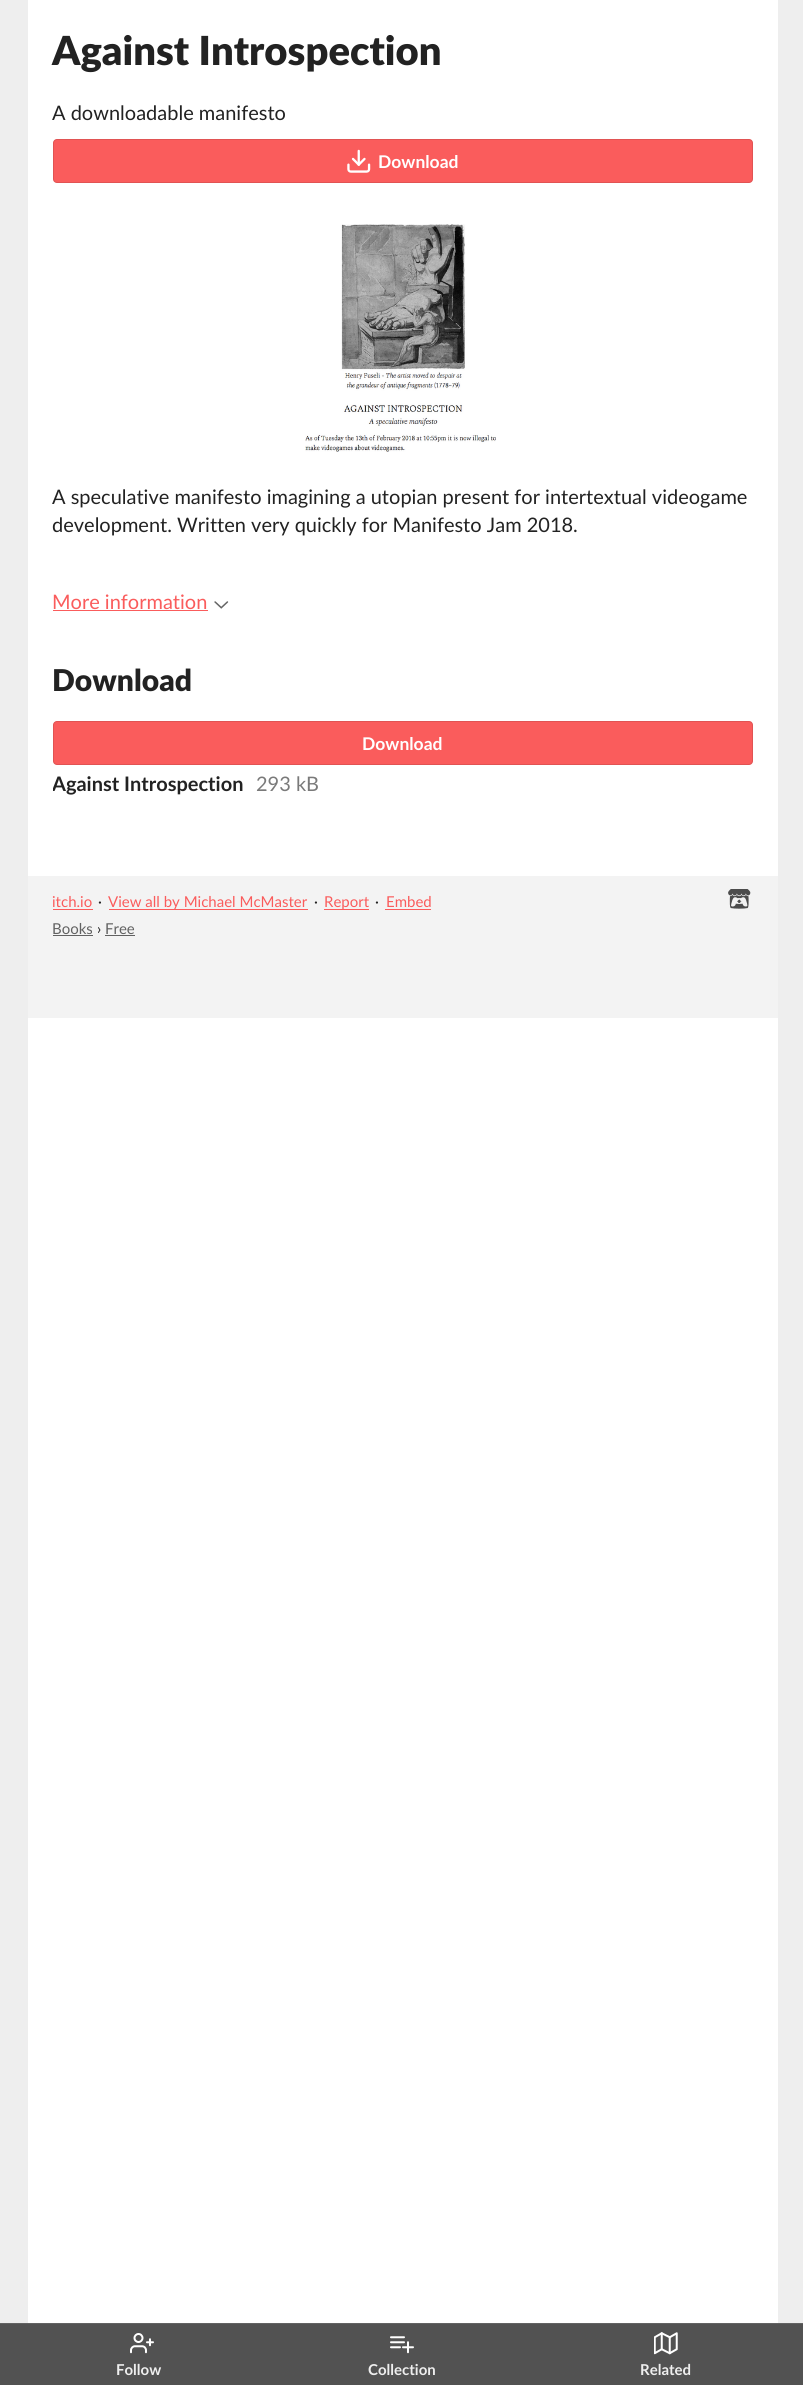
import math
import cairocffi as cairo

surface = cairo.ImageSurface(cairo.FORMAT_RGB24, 803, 2385)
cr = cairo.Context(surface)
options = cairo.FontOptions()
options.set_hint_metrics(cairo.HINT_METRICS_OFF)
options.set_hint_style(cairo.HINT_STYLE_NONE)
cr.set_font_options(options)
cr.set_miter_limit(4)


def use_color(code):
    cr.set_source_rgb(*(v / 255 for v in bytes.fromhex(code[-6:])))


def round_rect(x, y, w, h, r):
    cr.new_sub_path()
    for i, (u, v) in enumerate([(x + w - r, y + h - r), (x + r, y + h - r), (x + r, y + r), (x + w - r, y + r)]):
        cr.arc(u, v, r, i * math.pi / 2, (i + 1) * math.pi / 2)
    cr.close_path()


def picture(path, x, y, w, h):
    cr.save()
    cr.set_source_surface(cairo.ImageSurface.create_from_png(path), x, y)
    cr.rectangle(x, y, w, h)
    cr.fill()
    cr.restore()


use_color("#eeeeee")
cr.paint()
use_color("#ffffff")
cr.rectangle(28, 0, 750, 2323)
cr.fill()
cr.select_font_face("Lato Black")
cr.set_font_size(40)
use_color("#222222")
cr.move_to(52, 65)
cr.show_text("Against Introspection")
cr.select_font_face("Lato")
cr.set_font_size(20)
cr.move_to(52, 120)
cr.show_text("A downloadable manifesto")
use_color("#fa5c5c")
round_rect(53, 139, 700, 44, 4)
cr.fill()
round_rect(53.5, 139.5, 699, 43, 3.5)
cr.set_source_rgba(0, 0, 0, 0.1)
cr.set_line_width(1)
cr.stroke()
picture("img1.png", 347, 149, 24, 24)
cr.select_font_face("Lato", cairo.FONT_SLANT_NORMAL, cairo.FONT_WEIGHT_BOLD)
cr.set_font_size(17.5)
use_color("#ffffff")
cr.move_to(378, 168)
cr.show_text("Download")
picture("img2.png", 305, 224, 191, 228)
cr.select_font_face("Lato")
cr.set_font_size(20)
use_color("#222222")
cr.move_to(52, 504)
cr.show_text("A speculative manifesto imagining a utopian present for intertextual videogame")
cr.move_to(52, 532)
cr.show_text("development. Written very quickly for Manifesto Jam 2018.")
use_color("#fa5c5c")
cr.move_to(52, 609)
cr.show_text("More information")
cr.rectangle(53, 610, 155, 1)
cr.fill()
picture("img3.png", 214, 601, 15, 8)
cr.select_font_face("Lato Black")
cr.set_font_size(30)
use_color("#222222")
cr.move_to(52, 691)
cr.show_text("Download")
use_color("#fa5c5c")
round_rect(53, 721, 700, 44, 4)
cr.fill()
round_rect(53.5, 721.5, 699, 43, 3.5)
cr.set_source_rgba(0, 0, 0, 0.1)
cr.stroke()
cr.select_font_face("Lato", cairo.FONT_SLANT_NORMAL, cairo.FONT_WEIGHT_BOLD)
cr.set_font_size(17.5)
use_color("#ffffff")
cr.move_to(362, 750)
cr.show_text("Download")
cr.save()
cr.rectangle(53, 771, 191, 24)
cr.clip()
cr.set_font_size(20)
use_color("#222222")
cr.move_to(52, 791)
cr.show_text("Against Introspection")
cr.restore()
cr.select_font_face("Lato")
cr.set_font_size(20)
use_color("#7a7a7a")
cr.move_to(256, 791)
cr.show_text("293 kB")
use_color("#f3f3f3")
cr.rectangle(28, 876, 750, 142)
cr.fill()
cr.set_font_size(15)
use_color("#fa5c5c")
cr.move_to(52, 907)
cr.show_text("itch.io")
cr.rectangle(53, 909, 40, 1)
cr.fill()
use_color("#222222")
cr.move_to(98, 907)
cr.show_text("·")
use_color("#fa5c5c")
cr.rectangle(109, 909, 199, 1)
cr.fill()
cr.move_to(108, 907)
cr.show_text("View all by Michael McMaster")
use_color("#222222")
cr.move_to(314, 907)
cr.show_text("·")
use_color("#fa5c5c")
cr.rectangle(324, 909, 45, 1)
cr.fill()
cr.move_to(324, 907)
cr.show_text("Report")
use_color("#222222")
cr.move_to(375, 907)
cr.show_text("·")
use_color("#fa5c5c")
cr.move_to(386, 907)
cr.show_text("Embed")
cr.rectangle(385, 909, 46, 1)
cr.fill()
picture("img4.png", 728, 889, 23, 20)
use_color("#616161")
cr.move_to(52, 934)
cr.show_text("Books")
cr.rectangle(53, 935, 40, 1)
cr.fill()
use_color("#222222")
cr.move_to(97, 934)
cr.show_text("›")
use_color("#616161")
cr.move_to(105, 934)
cr.show_text("Free")
cr.rectangle(105, 935, 30, 1)
cr.fill()
use_color("#525252")
cr.rectangle(0, 2324, 803, 61)
cr.fill()
use_color("#636363")
cr.rectangle(0, 2323, 803, 1)
cr.fill()
picture("img5.png", 130, 2333, 24, 21)
cr.select_font_face("Lato", cairo.FONT_SLANT_NORMAL, cairo.FONT_WEIGHT_BOLD)
use_color("#eeeeee")
cr.move_to(116, 2375)
cr.show_text("Follow")
picture("img6.png", 390, 2336, 24, 18)
cr.move_to(368, 2375)
cr.show_text("Collection")
picture("img7.png", 654, 2332, 24, 23)
cr.move_to(640, 2375)
cr.show_text("Related")
surface.write_to_png("result.png")
